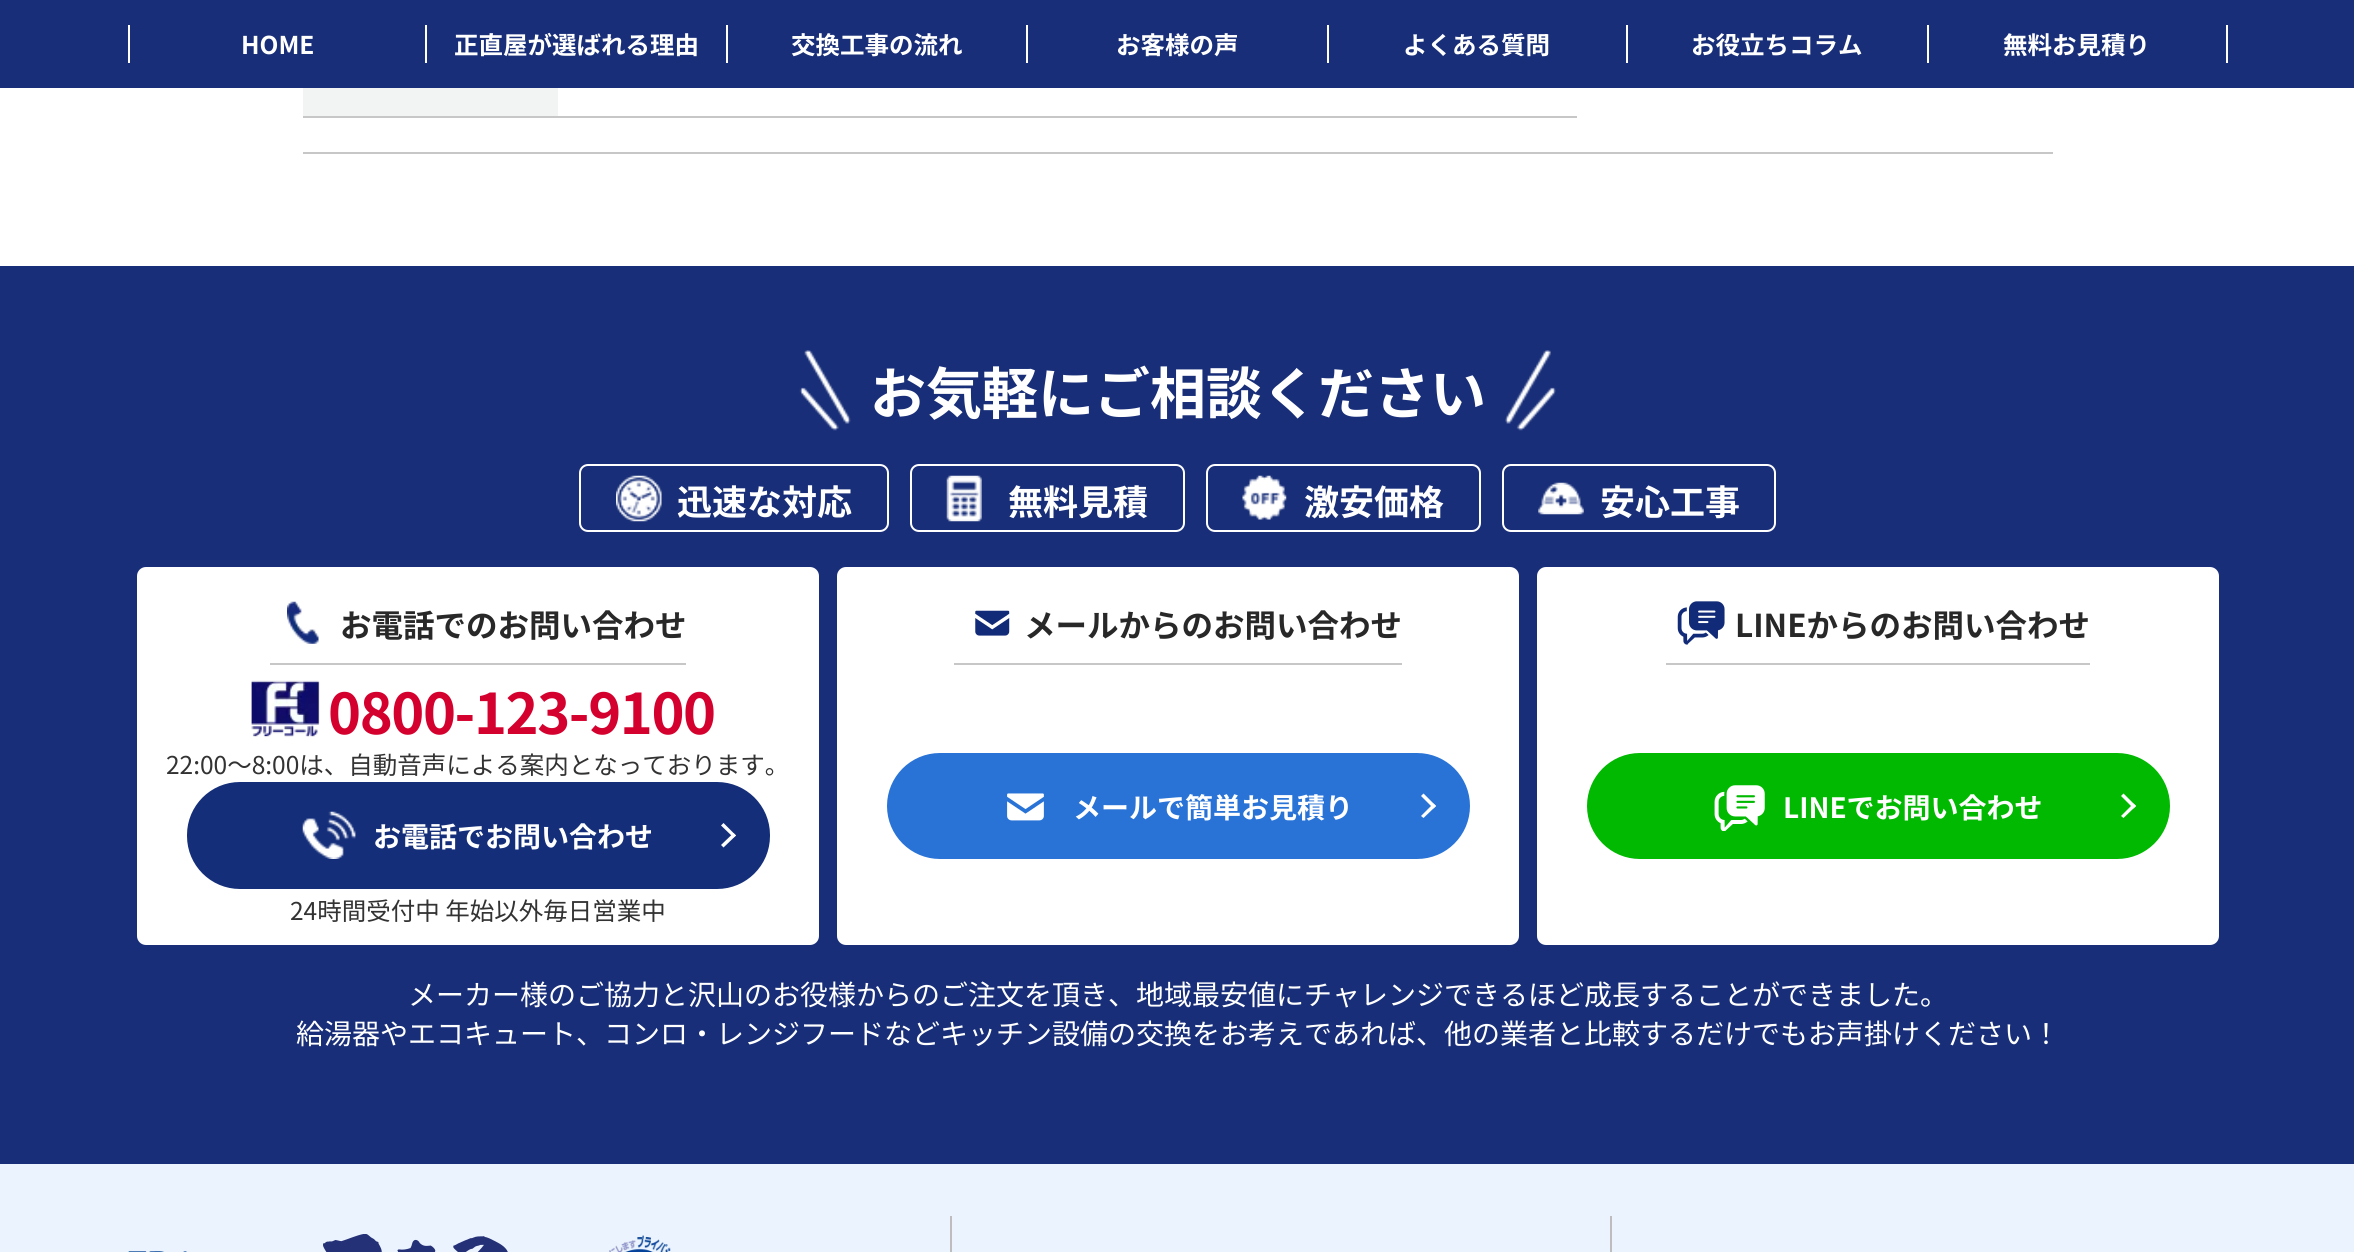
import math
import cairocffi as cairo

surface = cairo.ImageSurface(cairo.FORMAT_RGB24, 2354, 1252)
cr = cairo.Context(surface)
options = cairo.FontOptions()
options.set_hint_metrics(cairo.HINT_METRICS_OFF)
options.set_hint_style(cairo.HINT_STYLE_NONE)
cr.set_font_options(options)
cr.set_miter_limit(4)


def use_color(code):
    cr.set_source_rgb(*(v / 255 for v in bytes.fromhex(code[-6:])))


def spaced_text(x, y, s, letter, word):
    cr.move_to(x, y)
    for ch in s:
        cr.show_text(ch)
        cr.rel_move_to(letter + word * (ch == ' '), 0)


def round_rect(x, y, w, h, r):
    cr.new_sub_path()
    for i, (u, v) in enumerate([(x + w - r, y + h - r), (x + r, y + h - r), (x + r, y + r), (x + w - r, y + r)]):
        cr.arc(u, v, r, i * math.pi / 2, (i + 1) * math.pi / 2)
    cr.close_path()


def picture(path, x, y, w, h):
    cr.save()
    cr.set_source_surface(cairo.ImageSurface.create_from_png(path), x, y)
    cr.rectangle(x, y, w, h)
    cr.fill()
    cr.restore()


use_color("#ffffff")
cr.paint()
use_color("#182e78")
cr.rectangle(0, 0, 2354, 88)
cr.fill()
use_color("#ffffff")
cr.rectangle(425, 25, 2, 38)
cr.fill()
cr.rectangle(128, 25, 2, 38)
cr.fill()
cr.select_font_face("Noto Sans JP", cairo.FONT_SLANT_NORMAL, cairo.FONT_WEIGHT_BOLD)
cr.set_font_size(24.5)
cr.move_to(241, 54)
cr.show_text("HOME")
cr.rectangle(726, 25, 2, 38)
cr.fill()
cr.move_to(454, 54)
cr.show_text("正直屋が選ばれる理由")
cr.rectangle(1026, 25, 2, 38)
cr.fill()
cr.move_to(791, 54)
cr.show_text("交換工事の流れ")
cr.rectangle(1327, 25, 2, 38)
cr.fill()
cr.move_to(1116, 54)
cr.show_text("お客様の声")
cr.rectangle(1626, 25, 2, 38)
cr.fill()
cr.move_to(1403, 54)
cr.show_text("よくある質問")
cr.rectangle(1927, 25, 2, 38)
cr.fill()
cr.move_to(1691, 54)
cr.show_text("お役立ちコラム")
cr.rectangle(2226, 25, 2, 38)
cr.fill()
cr.move_to(2003, 54)
cr.show_text("無料お見積り")
use_color("#c7c7c7")
cr.rectangle(303, 152, 1750, 2)
cr.fill()
use_color("#f2f3f3")
cr.rectangle(303, 88, 255, 28)
cr.fill()
use_color("#c7c7c7")
cr.rectangle(303, 116, 1274, 2)
cr.fill()
use_color("#182e78")
cr.rectangle(0, 266, 2354, 898)
cr.fill()
picture("img1.png", 799, 350, 52, 81)
cr.set_font_size(56)
use_color("#ffffff")
cr.move_to(870, 414)
cr.show_text("お気軽にご相談ください")
picture("img2.png", 1505, 350, 51, 81)
round_rect(580, 465, 308, 66, 8)
cr.stroke()
picture("img3.png", 616, 475, 46, 47)
cr.set_font_size(35)
cr.move_to(677, 515)
cr.show_text("迅速な対応")
round_rect(911, 465, 273, 66, 8)
cr.stroke()
picture("img4.png", 946, 475, 36, 47)
cr.move_to(1008, 515)
cr.show_text("無料見積")
round_rect(1207, 465, 273, 66, 8)
cr.stroke()
picture("img5.png", 1242, 475, 45, 45)
cr.move_to(1304, 515)
cr.show_text("激安価格")
round_rect(1503, 465, 272, 66, 8)
cr.stroke()
picture("img6.png", 1538, 482, 46, 33)
cr.move_to(1600, 515)
cr.show_text("安心工事")
round_rect(137, 567, 682, 378, 9)
cr.fill()
use_color("#c7c7c7")
cr.rectangle(270, 663, 416, 2)
cr.fill()
picture("img7.png", 287, 601, 32, 43)
cr.set_font_size(31.5)
use_color("#282828")
cr.move_to(340, 637)
cr.show_text("お電話でのお問い合わせ")
picture("img8.png", 251, 680, 69, 57)
cr.set_font_size(56)
use_color("#d4002d")
spaced_text(328, 734, "0800-123-9100", -1.4, 0)
cr.select_font_face("Noto Sans JP")
cr.set_font_size(24.5)
use_color("#333333")
cr.move_to(166, 774)
cr.show_text("22:00～8:00は、自動音声による案内となっております。")
use_color("#142e7a")
round_rect(188, 783, 581, 105, 52)
cr.fill_preserve()
cr.stroke()
picture("img9.png", 302, 811, 54, 48)
cr.select_font_face("Noto Sans JP", cairo.FONT_SLANT_NORMAL, cairo.FONT_WEIGHT_BOLD)
cr.set_font_size(28)
use_color("#ffffff")
cr.move_to(373, 847)
cr.show_text("お電話でお問い合わせ")
cr.new_path()
cr.move_to(723.5, 823)
cr.line_to(736, 835.5)
cr.line_to(733.5, 837.5)
cr.line_to(721, 825.5)
cr.close_path()
cr.fill()
cr.new_path()
cr.move_to(733.5, 833)
cr.line_to(736, 835.5)
cr.line_to(723.5, 847.5)
cr.line_to(721, 845)
cr.close_path()
cr.fill()
cr.select_font_face("Noto Sans JP")
cr.set_font_size(24.5)
use_color("#333333")
cr.move_to(290, 920)
cr.show_text("24時間受付中 年始以外毎日営業中")
use_color("#ffffff")
round_rect(837, 567, 682, 378, 9)
cr.fill()
use_color("#c7c7c7")
cr.rectangle(954, 663, 448, 2)
cr.fill()
picture("img10.png", 975, 610, 35, 26)
cr.select_font_face("Noto Sans JP", cairo.FONT_SLANT_NORMAL, cairo.FONT_WEIGHT_BOLD)
cr.set_font_size(31.5)
use_color("#282828")
cr.move_to(1024, 637)
cr.show_text("メールからのお問い合わせ")
use_color("#2973d7")
round_rect(888, 754, 581, 104, 52)
cr.fill_preserve()
cr.stroke()
picture("img11.png", 1007, 793, 37, 28)
cr.set_font_size(28)
use_color("#ffffff")
cr.move_to(1073, 818)
cr.show_text("メールで簡単お見積り")
cr.new_path()
cr.move_to(1423.5, 793.5)
cr.line_to(1436, 806)
cr.line_to(1433.5, 808.5)
cr.line_to(1421, 796)
cr.close_path()
cr.fill()
cr.new_path()
cr.move_to(1433.5, 803.5)
cr.line_to(1436, 806)
cr.line_to(1423.5, 818)
cr.line_to(1421, 816)
cr.close_path()
cr.fill()
round_rect(1537, 567, 682, 378, 9)
cr.fill()
use_color("#c7c7c7")
cr.rectangle(1666, 663, 424, 2)
cr.fill()
picture("img12.png", 1677, 601, 48, 44)
cr.set_font_size(31.5)
use_color("#282828")
cr.move_to(1735, 637)
cr.show_text("LINEからのお問い合わせ")
use_color("#00b900")
round_rect(1588, 754, 581, 104, 52)
cr.fill_preserve()
cr.stroke()
picture("img13.png", 1714, 785, 51, 46)
cr.set_font_size(28)
use_color("#ffffff")
cr.move_to(1783, 818)
cr.show_text("LINEでお問い合わせ")
cr.new_path()
cr.move_to(2123.5, 793.5)
cr.line_to(2136, 806)
cr.line_to(2133.5, 808.5)
cr.line_to(2121, 796)
cr.close_path()
cr.fill()
cr.new_path()
cr.move_to(2133.5, 803.5)
cr.line_to(2136, 806)
cr.line_to(2123.5, 818)
cr.line_to(2121, 816)
cr.close_path()
cr.fill()
cr.select_font_face("Noto Sans JP")
cr.move_to(408, 1005)
cr.show_text("メーカー様のご協力と沢山のお役様からのご注文を頂き、地域最安値にチャレンジできるほど成長することができました。")
cr.move_to(296, 1044)
cr.show_text("給湯器やエコキュート、コンロ・レンジフードなどキッチン設備の交換をお考えであれば、他の業者と比較するだけでもお声掛けください！")
use_color("#ebf4fe")
cr.rectangle(0, 1164, 2354, 88)
cr.fill()
picture("img14.png", 128, 1251, 59, 1)
picture("img15.png", 323, 1234, 185, 18)
picture("img16.png", 609, 1235, 62, 17)
use_color("#bdbdbd")
cr.rectangle(950, 1216, 2, 36)
cr.fill()
cr.rectangle(1610, 1216, 2, 36)
cr.fill()
surface.write_to_png("result.png")
